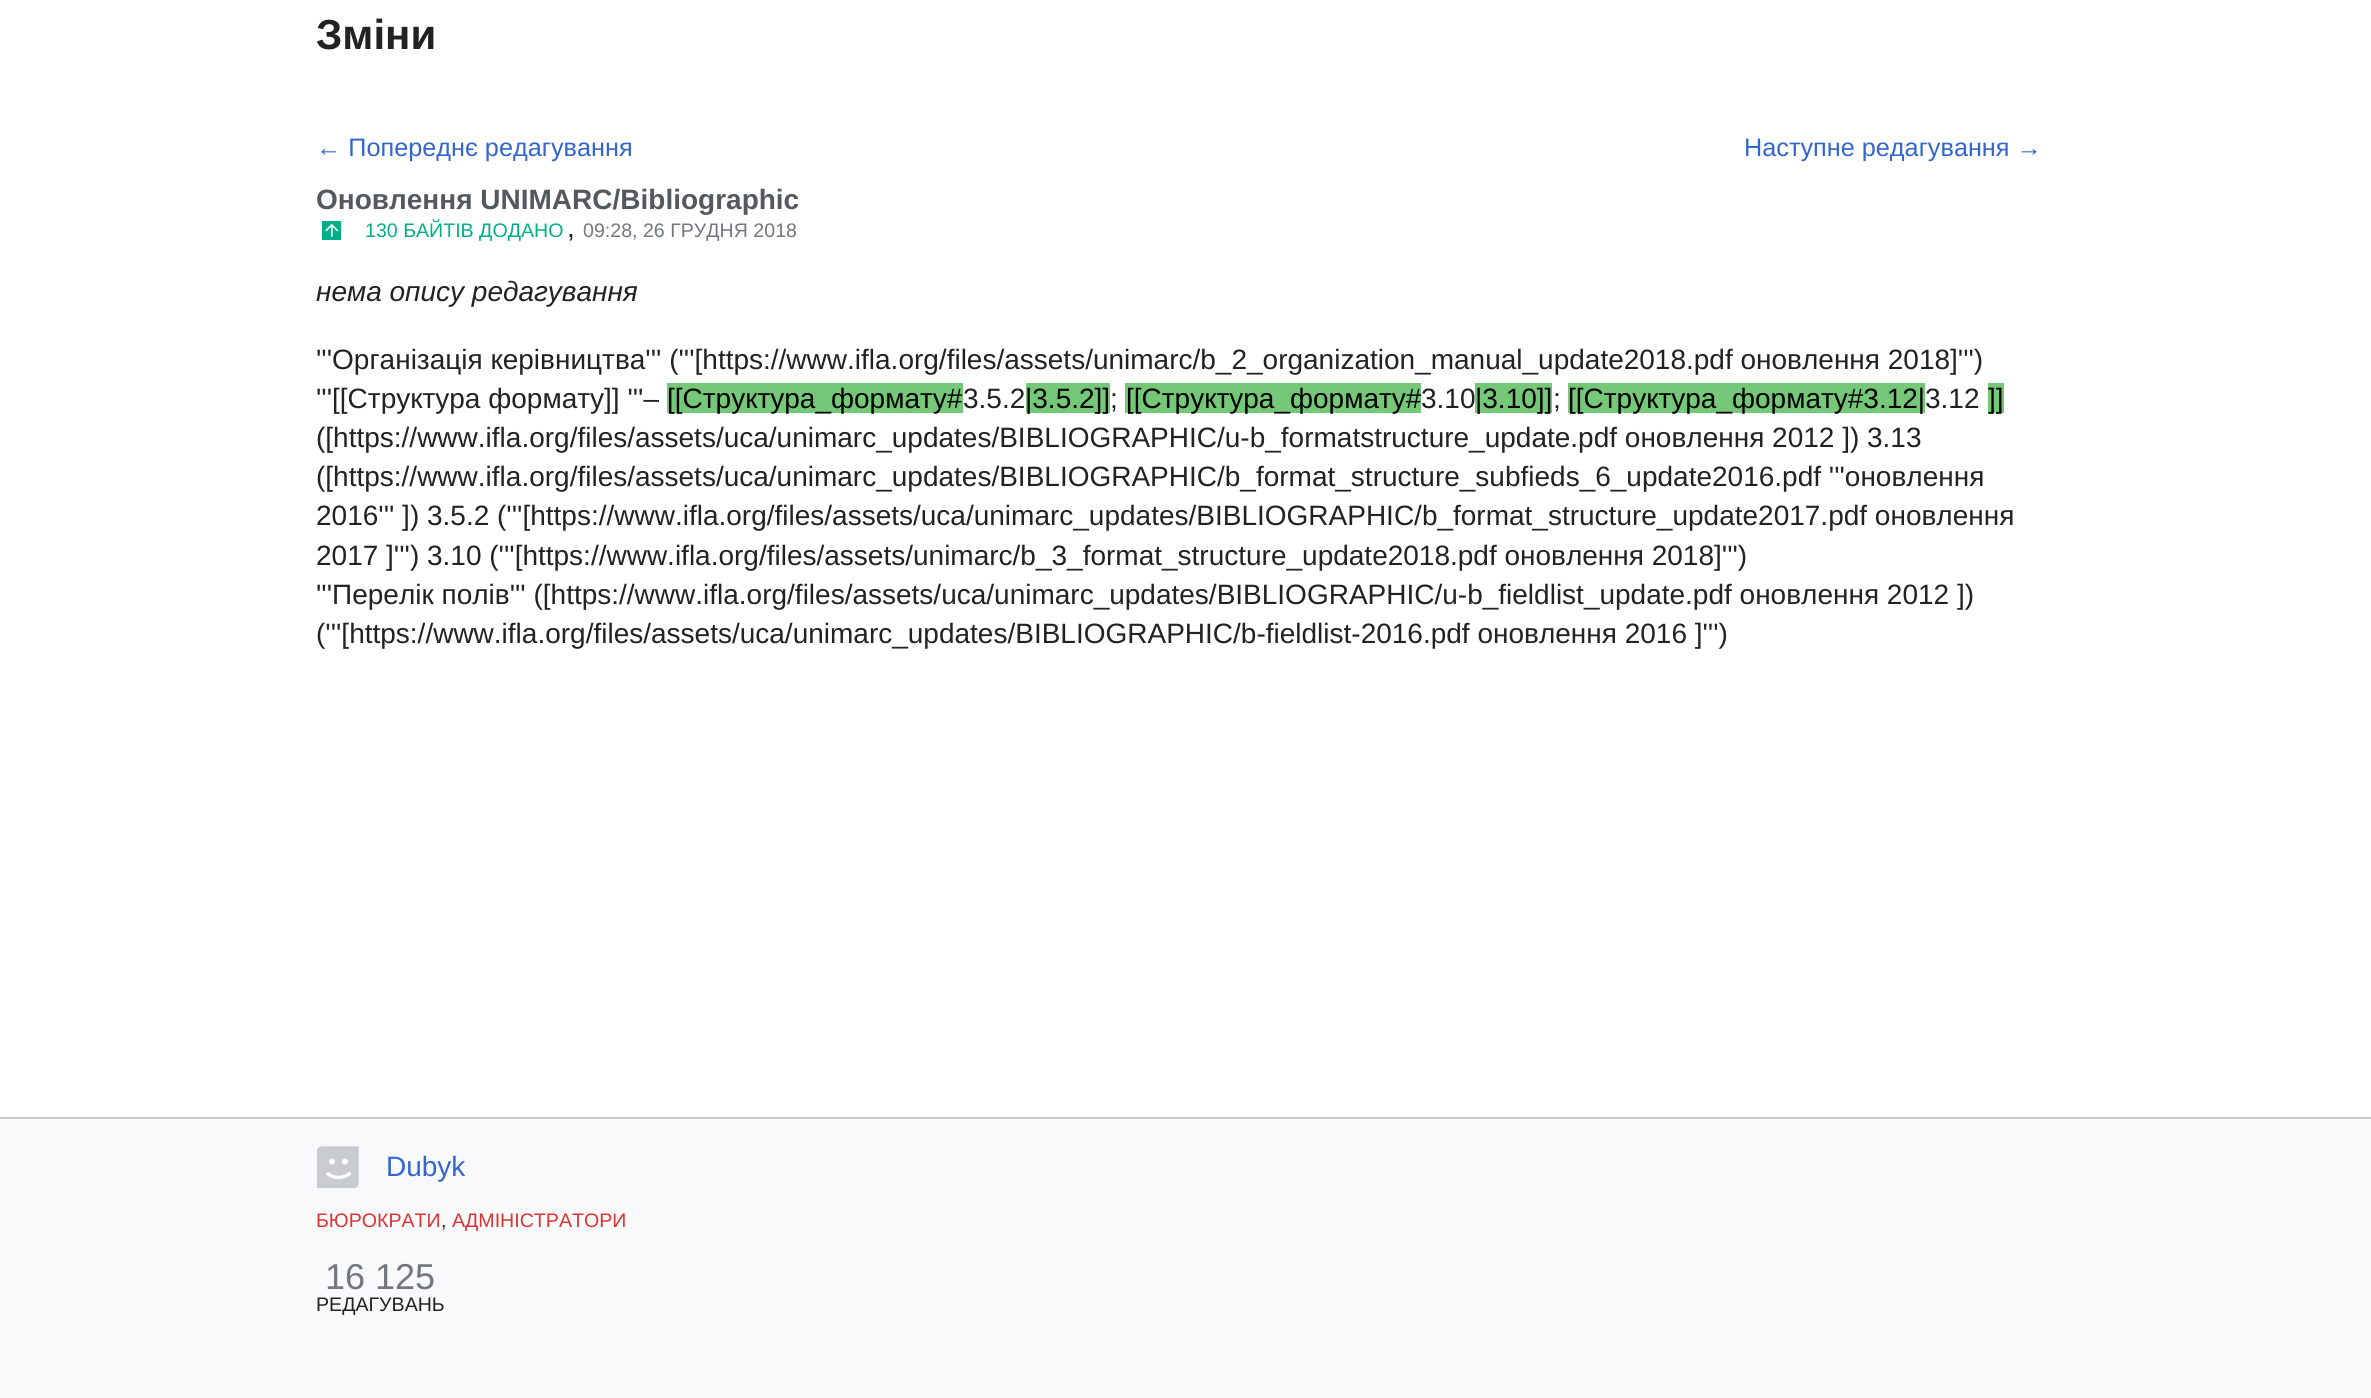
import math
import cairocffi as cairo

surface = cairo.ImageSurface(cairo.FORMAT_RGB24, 2371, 1398)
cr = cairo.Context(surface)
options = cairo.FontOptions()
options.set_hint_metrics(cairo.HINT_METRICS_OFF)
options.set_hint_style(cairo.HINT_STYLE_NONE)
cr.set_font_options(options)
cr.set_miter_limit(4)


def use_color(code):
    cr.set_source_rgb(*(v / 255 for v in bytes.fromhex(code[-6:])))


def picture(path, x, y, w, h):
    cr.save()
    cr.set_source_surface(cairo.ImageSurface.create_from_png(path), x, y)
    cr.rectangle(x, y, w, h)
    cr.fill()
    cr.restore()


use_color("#ffffff")
cr.paint()
cr.select_font_face("Liberation Sans", cairo.FONT_SLANT_NORMAL, cairo.FONT_WEIGHT_BOLD)
cr.set_font_size(42)
use_color("#222222")
cr.move_to(316, 49)
cr.show_text("Зміни")
cr.select_font_face("Liberation Sans")
cr.set_font_size(25.25)
use_color("#3366cc")
cr.move_to(316, 156)
cr.show_text("← Попереднє редагування")
cr.move_to(1744, 156)
cr.show_text("Наступне редагування →")
cr.select_font_face("Liberation Sans", cairo.FONT_SLANT_NORMAL, cairo.FONT_WEIGHT_BOLD)
cr.set_font_size(28)
use_color("#54595d")
cr.move_to(316, 209)
cr.show_text("Оновлення UNIMARC/Bibliographic")
picture("img1.png", 322, 221, 19, 19)
cr.select_font_face("Liberation Sans")
cr.set_font_size(19.6)
use_color("#00af88")
cr.move_to(365, 237)
cr.show_text("130 БАЙТІВ ДОДАНО")
cr.set_font_size(28)
use_color("#222222")
cr.move_to(567, 237)
cr.show_text(",")
cr.set_font_size(19.6)
use_color("#72777d")
cr.move_to(583, 237)
cr.show_text("09:28, 26 ГРУДНЯ 2018")
cr.select_font_face("Liberation Sans", cairo.FONT_SLANT_ITALIC)
cr.set_font_size(28)
use_color("#222222")
cr.move_to(316, 301)
cr.show_text("нема опису редагування")
cr.select_font_face("Liberation Sans")
cr.move_to(316, 369)
cr.show_text("'''Організація керівництва''' ('''[https://www.ifla.org/files/assets/unimarc/b_2_organization_manual_update2018.pdf оновлення 2018]''')")
cr.move_to(316, 408)
cr.show_text("'''[[Структура формату]] '''–")
use_color("#75c877")
cr.rectangle(667, 383, 296, 30)
cr.fill()
use_color("#000000")
cr.move_to(667, 408)
cr.show_text("[[Структура_формату#")
use_color("#222222")
cr.move_to(963, 408)
cr.show_text("3.5.2")
use_color("#75c877")
cr.rectangle(1026, 383, 84, 30)
cr.fill()
use_color("#000000")
cr.move_to(1025, 408)
cr.show_text("|3.5.2]]")
use_color("#222222")
cr.move_to(1110, 408)
cr.show_text(";")
use_color("#75c877")
cr.rectangle(1125, 383, 296, 30)
cr.fill()
use_color("#000000")
cr.move_to(1126, 408)
cr.show_text("[[Структура_формату#")
use_color("#222222")
cr.move_to(1421, 408)
cr.show_text("3.10")
use_color("#75c877")
cr.rectangle(1475, 383, 77, 30)
cr.fill()
use_color("#000000")
cr.move_to(1475, 408)
cr.show_text("|3.10]]")
use_color("#222222")
cr.move_to(1553, 408)
cr.show_text(";")
use_color("#75c877")
cr.rectangle(1568, 383, 357, 30)
cr.fill()
use_color("#000000")
cr.move_to(1568, 408)
cr.show_text("[[Структура_формату#3.12|")
use_color("#222222")
cr.move_to(1925, 408)
cr.show_text("3.12")
use_color("#75c877")
cr.rectangle(1988, 383, 16, 30)
cr.fill()
use_color("#000000")
cr.move_to(1988, 408)
cr.show_text("]]")
use_color("#222222")
cr.move_to(316, 447)
cr.show_text("([https://www.ifla.org/files/assets/uca/unimarc_updates/BIBLIOGRAPHIC/u-b_formatstructure_update.pdf оновлення 2012 ]) 3.13")
cr.move_to(316, 486)
cr.show_text("([https://www.ifla.org/files/assets/uca/unimarc_updates/BIBLIOGRAPHIC/b_format_structure_subfieds_6_update2016.pdf '''оновлення")
cr.move_to(316, 525)
cr.show_text("2016''' ]) 3.5.2 ('''[https://www.ifla.org/files/assets/uca/unimarc_updates/BIBLIOGRAPHIC/b_format_structure_update2017.pdf оновлення")
cr.move_to(316, 565)
cr.show_text("2017 ]''') 3.10 ('''[https://www.ifla.org/files/assets/unimarc/b_3_format_structure_update2018.pdf оновлення 2018]''')")
cr.move_to(316, 604)
cr.show_text("'''Перелік полів''' ([https://www.ifla.org/files/assets/uca/unimarc_updates/BIBLIOGRAPHIC/u-b_fieldlist_update.pdf оновлення 2012 ])")
cr.move_to(316, 643)
cr.show_text("('''[https://www.ifla.org/files/assets/uca/unimarc_updates/BIBLIOGRAPHIC/b-fieldlist-2016.pdf оновлення 2016 ]''')")
use_color("#f8f9fa")
cr.rectangle(0, 1119, 2371, 279)
cr.fill()
use_color("#c8ccd1")
cr.rectangle(0, 1117, 2371, 2)
cr.fill()
picture("img2.png", 317, 1146, 42, 42)
use_color("#3366cc")
cr.move_to(386, 1176)
cr.show_text("Dubyk")
cr.set_font_size(19.6)
use_color("#dd3333")
cr.move_to(316, 1227)
cr.show_text("БЮРОКРАТИ")
use_color("#222222")
cr.move_to(441, 1227)
cr.show_text(",")
use_color("#dd3333")
cr.move_to(452, 1227)
cr.show_text("АДМІНІСТРАТОРИ")
cr.set_font_size(36)
use_color("#72777d")
cr.move_to(325, 1289)
cr.show_text("16 125")
cr.set_font_size(19.6)
use_color("#222222")
cr.move_to(316, 1311)
cr.show_text("РЕДАГУВАНЬ")
surface.write_to_png("result.png")
